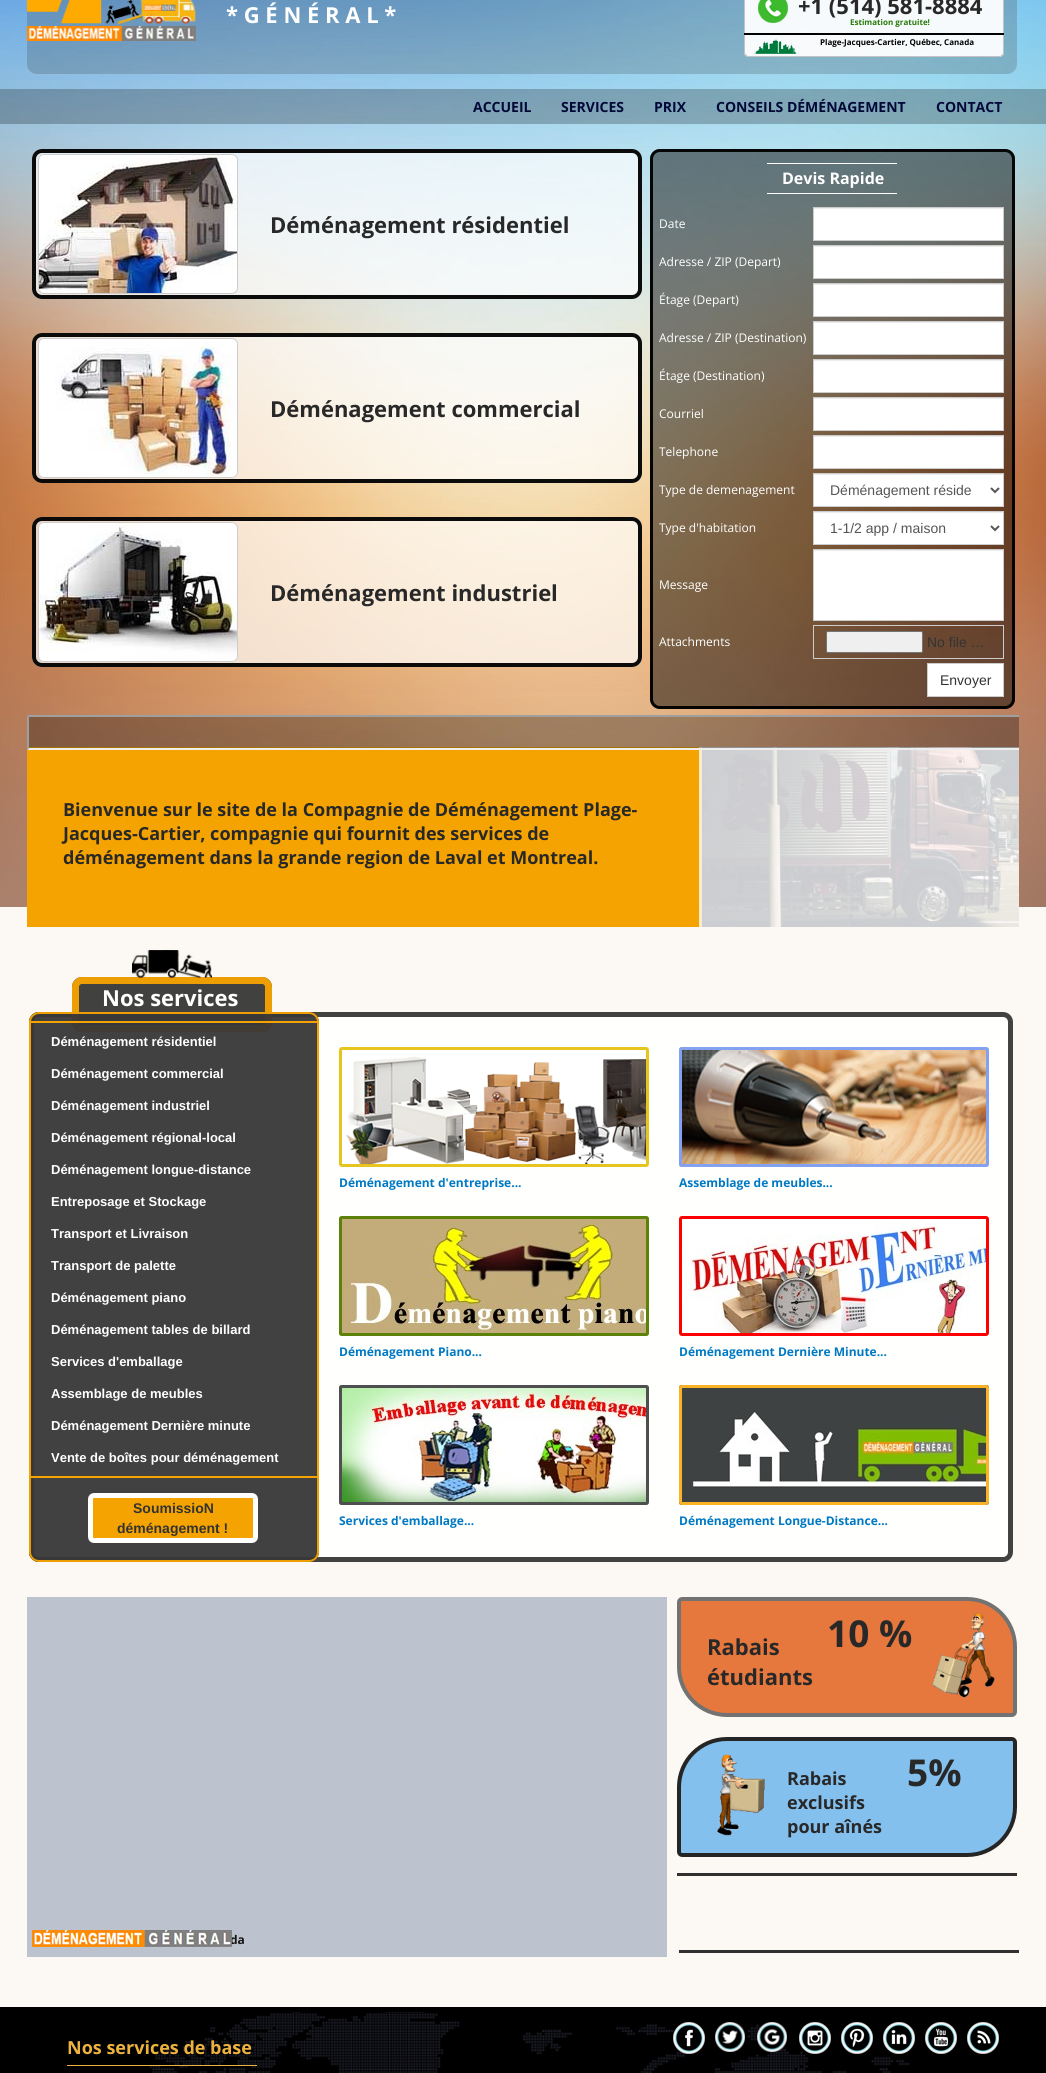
import math
import cairocffi as cairo

surface = cairo.ImageSurface(cairo.FORMAT_RGB24, 1046, 2073)
cr = cairo.Context(surface)
options = cairo.FontOptions()
options.set_hint_metrics(cairo.HINT_METRICS_OFF)
options.set_hint_style(cairo.HINT_STYLE_NONE)
cr.set_font_options(options)
cr.set_miter_limit(4)


def use_color(code):
    cr.set_source_rgb(*(v / 255 for v in bytes.fromhex(code[-6:])))


def round_rect(x, y, w, h, r):
    cr.new_sub_path()
    for i, (u, v) in enumerate([(x + w - r, y + h - r), (x + r, y + h - r), (x + r, y + r), (x + w - r, y + r)]):
        cr.arc(u, v, r, i * math.pi / 2, (i + 1) * math.pi / 2)
    cr.close_path()


def picture(path, x, y, w, h):
    cr.save()
    cr.set_source_surface(cairo.ImageSurface.create_from_png(path), x, y)
    cr.rectangle(x, y, w, h)
    cr.fill()
    cr.restore()


use_color("#fcf9f4")
cr.paint()
picture("img1.png", 0, 0, 1046, 907)
cr.set_source_rgba(0.22, 0.22, 0.22, 0.22)
round_rect(27, -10, 990, 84, 10)
cr.fill()
picture("img2.png", 27, 0, 169, 41)
cr.set_source_rgba(1, 1, 1, 0.94)
round_rect(744, -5, 260, 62, 5)
cr.fill()
round_rect(744.5, -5.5, 259, 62, 4.5)
cr.set_source_rgba(0.753, 0.753, 0.753, 0.95)
cr.set_line_width(1)
cr.stroke()
cr.select_font_face("Open Sans", cairo.FONT_SLANT_NORMAL, cairo.FONT_WEIGHT_BOLD)
cr.set_font_size(22)
use_color("#ffffff")
cr.move_to(226, 23)
cr.show_text("* G É N É R A L *")
picture("img3.png", 758, 0, 30, 23)
use_color("#282828")
cr.move_to(798, 14)
cr.show_text("+1 (514) 581-8884")
cr.set_font_size(8)
use_color("#267a07")
cr.move_to(850, 25)
cr.show_text("Estimation gratuite!")
use_color("#000000")
cr.rectangle(744, 33, 260, 2)
cr.fill()
picture("img4.png", 754, 39, 43, 15)
cr.move_to(820, 45)
cr.show_text("Plage-Jacques-Cartier, Québec, Canada")
cr.set_source_rgba(0, 0, 0, 0.24)
cr.rectangle(0, 89, 1046, 35)
cr.fill()
cr.set_font_size(14)
use_color("#010838")
cr.move_to(473, 112)
cr.show_text("ACCUEIL")
cr.move_to(561, 112)
cr.show_text("SERVICES")
cr.move_to(654, 112)
cr.show_text("PRIX")
cr.move_to(716, 112)
cr.show_text("CONSEILS DÉMÉNAGEMENT")
cr.move_to(936, 112)
cr.show_text("CONTACT")
cr.set_source_rgba(1, 1, 1, 0.69)
round_rect(32, 149, 610, 150, 10)
cr.fill()
round_rect(34, 151, 606, 146, 8)
cr.set_source_rgba(0, 0, 0, 0.95)
cr.set_line_width(4)
cr.stroke()
cr.set_source_rgba(0, 0, 0, 0.48)
round_rect(650, 149, 365, 560, 10)
cr.fill()
round_rect(651.5, 150.5, 362, 557, 8.5)
cr.set_source_rgba(0, 0, 0, 0.95)
cr.set_line_width(3)
cr.stroke()
picture("img5.png", 38, 154, 200, 140)
round_rect(38.5, 154.5, 199, 139, 5.5)
use_color("#cccccc")
cr.set_line_width(1)
cr.stroke()
use_color("#ffffff")
cr.rectangle(767, 163, 130, 1)
cr.fill()
cr.set_font_size(16)
cr.move_to(782, 184)
cr.show_text("Devis Rapide")
cr.rectangle(767, 193, 130, 1)
cr.fill()
cr.set_font_size(22)
use_color("#282828")
cr.move_to(270, 233)
cr.show_text("Déménagement résidentiel")
cr.select_font_face("Open Sans")
cr.set_font_size(12)
use_color("#ffffff")
cr.move_to(659, 228)
cr.show_text("Date")
cr.rectangle(814, 209, 189, 31)
cr.fill()
use_color("#ececec")
cr.rectangle(814, 208, 189, 1)
cr.fill()
cr.rectangle(813.5, 207.5, 190, 33)
use_color("#cccccc")
cr.stroke()
use_color("#ffffff")
cr.move_to(659, 266)
cr.show_text("Adresse / ZIP (Depart)")
cr.rectangle(814, 247, 189, 31)
cr.fill()
use_color("#ececec")
cr.rectangle(814, 246, 189, 1)
cr.fill()
cr.rectangle(813.5, 245.5, 190, 33)
use_color("#cccccc")
cr.stroke()
use_color("#ffffff")
cr.move_to(659, 304)
cr.show_text("Étage (Depart)")
cr.rectangle(814, 285, 189, 31)
cr.fill()
use_color("#ececec")
cr.rectangle(814, 284, 189, 1)
cr.fill()
cr.rectangle(813.5, 283.5, 190, 33)
use_color("#cccccc")
cr.stroke()
use_color("#ffffff")
cr.move_to(659, 342)
cr.show_text("Adresse / ZIP (Destination)")
cr.rectangle(814, 323, 189, 31)
cr.fill()
use_color("#ececec")
cr.rectangle(814, 322, 189, 1)
cr.fill()
cr.rectangle(813.5, 321.5, 190, 33)
use_color("#cccccc")
cr.stroke()
use_color("#ffffff")
cr.move_to(659, 380)
cr.show_text("Étage (Destination)")
cr.rectangle(814, 361, 189, 31)
cr.fill()
use_color("#ececec")
cr.rectangle(814, 360, 189, 1)
cr.fill()
cr.rectangle(813.5, 359.5, 190, 33)
use_color("#cccccc")
cr.stroke()
use_color("#ffffff")
cr.move_to(659, 418)
cr.show_text("Courriel")
cr.rectangle(814, 399, 189, 31)
cr.fill()
use_color("#ececec")
cr.rectangle(814, 398, 189, 1)
cr.fill()
cr.rectangle(813.5, 397.5, 190, 33)
use_color("#cccccc")
cr.stroke()
use_color("#ffffff")
cr.move_to(659, 456)
cr.show_text("Telephone")
cr.rectangle(814, 437, 189, 31)
cr.fill()
use_color("#ececec")
cr.rectangle(814, 436, 189, 1)
cr.fill()
cr.rectangle(813.5, 435.5, 190, 33)
use_color("#cccccc")
cr.stroke()
use_color("#ffffff")
cr.move_to(659, 494)
cr.show_text("Type de demenagement")
cr.rectangle(814, 475, 189, 31)
cr.fill()
use_color("#ececec")
cr.rectangle(814, 474, 189, 1)
cr.fill()
cr.rectangle(813.5, 473.5, 190, 33)
use_color("#cccccc")
cr.stroke()
cr.new_path()
cr.move_to(991, 488)
cr.line_to(995, 492)
cr.line_to(999, 488)
use_color("#555555")
cr.set_line_width(2)
cr.stroke()
cr.select_font_face("Liberation Sans")
cr.set_font_size(14)
cr.move_to(830, 495)
cr.show_text("Déménagement réside")
cr.select_font_face("Open Sans")
cr.set_font_size(12)
use_color("#ffffff")
cr.move_to(659, 532)
cr.show_text("Type d'habitation")
cr.rectangle(814, 513, 189, 31)
cr.fill()
use_color("#ececec")
cr.rectangle(814, 512, 189, 1)
cr.fill()
cr.rectangle(813.5, 511.5, 190, 33)
use_color("#cccccc")
cr.set_line_width(1)
cr.stroke()
cr.new_path()
cr.move_to(991, 526)
cr.line_to(995, 530)
cr.line_to(999, 526)
use_color("#555555")
cr.set_line_width(2)
cr.stroke()
cr.select_font_face("Liberation Sans")
cr.set_font_size(14)
cr.move_to(830, 533)
cr.show_text("1-1/2 app / maison")
cr.select_font_face("Open Sans")
cr.set_font_size(12)
use_color("#ffffff")
cr.move_to(659, 589)
cr.show_text("Message")
cr.rectangle(814, 551, 189, 69)
cr.fill()
use_color("#ececec")
cr.rectangle(814, 550, 189, 1)
cr.fill()
cr.rectangle(813.5, 549.5, 190, 71)
use_color("#cccccc")
cr.set_line_width(1)
cr.stroke()
use_color("#ffffff")
cr.move_to(659, 646)
cr.show_text("Attachments")
cr.rectangle(813.5, 625.5, 190, 33)
use_color("#cccccc")
cr.stroke()
use_color("#efefef")
round_rect(826.5, 631.5, 96, 21, 1.5)
cr.fill_preserve()
use_color("#767676")
cr.stroke()
cr.select_font_face("Liberation Sans")
cr.set_font_size(14)
use_color("#333333")
cr.move_to(927, 647)
cr.show_text("No file …")
use_color("#ffffff")
cr.rectangle(927.5, 663.5, 76, 33)
cr.fill_preserve()
use_color("#cccccc")
cr.stroke()
use_color("#333333")
cr.move_to(940, 685)
cr.show_text("Envoyer")
cr.set_source_rgba(1, 1, 1, 0.69)
round_rect(32, 333, 610, 150, 10)
cr.fill()
round_rect(34, 335, 606, 146, 8)
cr.set_source_rgba(0, 0, 0, 0.95)
cr.set_line_width(4)
cr.stroke()
picture("img6.png", 38, 338, 200, 140)
round_rect(38.5, 338.5, 199, 139, 5.5)
use_color("#cccccc")
cr.set_line_width(1)
cr.stroke()
cr.select_font_face("Open Sans", cairo.FONT_SLANT_NORMAL, cairo.FONT_WEIGHT_BOLD)
cr.set_font_size(22)
use_color("#282828")
cr.move_to(270, 417)
cr.show_text("Déménagement commercial")
cr.set_source_rgba(1, 1, 1, 0.69)
round_rect(32, 517, 610, 150, 10)
cr.fill()
round_rect(34, 519, 606, 146, 8)
cr.set_source_rgba(0, 0, 0, 0.95)
cr.set_line_width(4)
cr.stroke()
picture("img7.png", 38, 522, 200, 140)
round_rect(38.5, 522.5, 199, 139, 5.5)
use_color("#cccccc")
cr.set_line_width(1)
cr.stroke()
use_color("#282828")
cr.move_to(270, 601)
cr.show_text("Déménagement industriel")
use_color("#f5a300")
cr.rectangle(27, 747, 675, 180)
cr.fill()
picture("img8.png", 702, 747, 317, 180)
cr.set_source_rgba(1, 1, 1, 0.8)
cr.rectangle(699, 747, 320, 180)
cr.fill()
cr.set_source_rgba(0, 0, 0, 0.3)
cr.rectangle(27, 715, 992, 35)
cr.fill()
cr.save()
cr.rectangle(27, 715, 992, 35)
cr.clip()
use_color("#9f9f9f")
cr.new_path()
cr.move_to(27, 715)
cr.line_to(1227, 715)
cr.line_to(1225, 717)
cr.line_to(29, 717)
cr.close_path()
cr.fill()
use_color("#eeeeee")
cr.new_path()
cr.move_to(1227, 750)
cr.line_to(27, 750)
cr.line_to(29, 748)
cr.line_to(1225, 748)
cr.close_path()
cr.fill()
cr.restore()
use_color("#9f9f9f")
cr.new_path()
cr.move_to(27, 750)
cr.line_to(27, 715)
cr.line_to(29, 717)
cr.line_to(29, 748)
cr.close_path()
cr.fill()
cr.set_font_size(18)
use_color("#282828")
cr.move_to(63, 816)
cr.show_text("Bienvenue sur le site de la Compagnie de Déménagement Plage-")
cr.move_to(63, 840)
cr.show_text("Jacques-Cartier, compagnie qui fournit des services de")
cr.move_to(63, 864)
cr.show_text("déménagement dans la grande region de Laval et Montreal.")
use_color("#fffffe")
round_rect(31.5, 1014.5, 979, 545, 7.5)
cr.fill_preserve()
use_color("#424241")
cr.set_line_width(5)
cr.stroke()
cr.set_source_rgba(0.22, 0.22, 0.22, 0.95)
round_rect(72, 977, 200, 55, 10)
cr.fill()
round_rect(75.5, 980.5, 193, 48, 6.5)
cr.set_source_rgba(0.961, 0.639, 0, 0.95)
cr.set_line_width(7)
cr.stroke()
picture("img9.png", 132, 950, 80, 28)
cr.set_font_size(22)
use_color("#ffffff")
cr.move_to(102, 1006)
cr.show_text("Nos services")
cr.set_source_rgba(0.22, 0.22, 0.22, 0.95)
round_rect(29, 1012, 290, 550, 10)
cr.fill()
round_rect(30, 1013, 288, 548, 9)
cr.set_source_rgba(0.961, 0.639, 0, 0.95)
cr.set_line_width(2)
cr.stroke()
cr.rectangle(30, 1022, 288, 455)
use_color("#f5a300")
cr.stroke()
cr.select_font_face("Liberation Sans", cairo.FONT_SLANT_NORMAL, cairo.FONT_WEIGHT_BOLD)
cr.set_font_size(13)
use_color("#ffffff")
cr.move_to(51, 1046)
cr.show_text("Déménagement résidentiel")
cr.move_to(51, 1078)
cr.show_text("Déménagement commercial")
cr.move_to(51, 1110)
cr.show_text("Déménagement industriel")
cr.move_to(51, 1142)
cr.show_text("Déménagement régional-local")
cr.move_to(51, 1174)
cr.show_text("Déménagement longue-distance")
cr.move_to(51, 1206)
cr.show_text("Entreposage et Stockage")
cr.move_to(51, 1238)
cr.show_text("Transport et Livraison")
cr.move_to(51, 1270)
cr.show_text("Transport de palette")
cr.move_to(51, 1302)
cr.show_text("Déménagement piano")
cr.move_to(51, 1334)
cr.show_text("Déménagement tables de billard")
cr.move_to(51, 1366)
cr.show_text("Services d'emballage")
cr.move_to(51, 1398)
cr.show_text("Assemblage de meubles")
cr.move_to(51, 1430)
cr.show_text("Déménagement Dernière minute")
cr.move_to(51, 1462)
cr.show_text("Vente de boîtes pour déménagement")
picture("img10.png", 339, 1047, 310, 120)
round_rect(340.5, 1048.5, 307, 117, 1.5)
use_color("#e6c51e")
cr.set_line_width(3)
cr.stroke()
picture("img11.png", 679, 1047, 310, 120)
round_rect(680.5, 1048.5, 307, 117, 1.5)
use_color("#82a1f0")
cr.stroke()
cr.select_font_face("Open Sans", cairo.FONT_SLANT_NORMAL, cairo.FONT_WEIGHT_BOLD)
cr.set_font_size(12)
use_color("#0079c4")
cr.move_to(339, 1187)
cr.show_text("Déménagement d'entreprise...")
cr.move_to(679, 1187)
cr.show_text("Assemblage de meubles...")
picture("img12.png", 339, 1216, 310, 120)
round_rect(340.5, 1217.5, 307, 117, 1.5)
use_color("#5c8209")
cr.stroke()
picture("img13.png", 679, 1216, 310, 120)
round_rect(680.5, 1217.5, 307, 117, 1.5)
use_color("#ff0000")
cr.stroke()
use_color("#0079c4")
cr.move_to(339, 1356)
cr.show_text("Déménagement Piano...")
cr.move_to(679, 1356)
cr.show_text("Déménagement Dernière Minute...")
picture("img14.png", 339, 1385, 310, 120)
round_rect(340.5, 1386.5, 307, 117, 1.5)
use_color("#4f4f4f")
cr.stroke()
picture("img15.png", 679, 1385, 310, 120)
round_rect(680.5, 1386.5, 307, 117, 1.5)
use_color("#fab325")
cr.stroke()
use_color("#f5a300")
round_rect(90.5, 1495.5, 165, 45, 3.5)
cr.fill_preserve()
use_color("#ffffff")
cr.set_line_width(5)
cr.stroke()
cr.select_font_face("Liberation Sans", cairo.FONT_SLANT_NORMAL, cairo.FONT_WEIGHT_BOLD)
cr.set_font_size(14)
use_color("#333333")
cr.move_to(133, 1513)
cr.show_text("SoumissioN")
cr.move_to(117, 1533)
cr.show_text("déménagement !")
cr.select_font_face("Open Sans", cairo.FONT_SLANT_NORMAL, cairo.FONT_WEIGHT_BOLD)
cr.set_font_size(12)
use_color("#0079c4")
cr.move_to(339, 1525)
cr.show_text("Services d'emballage...")
cr.move_to(679, 1525)
cr.show_text("Déménagement Longue-Distance...")
use_color("#bdc3ce")
cr.rectangle(27, 1597, 640, 360)
cr.fill()
use_color("#e7783d")
cr.new_path()
cr.move_to(682, 1599)
cr.line_to(967, 1599)
cr.curve_to(993.5, 1599, 1015, 1620.5, 1015, 1647)
cr.line_to(1015, 1712)
cr.curve_to(1015, 1713.5, 1013.5, 1715, 1012, 1715)
cr.line_to(727, 1715)
cr.curve_to(700.5, 1715, 679, 1693.5, 679, 1667)
cr.line_to(679, 1602)
cr.curve_to(679, 1600.5, 680.5, 1599, 682, 1599)
cr.close_path()
cr.fill_preserve()
use_color("#727272")
cr.set_line_width(4)
cr.stroke()
cr.set_font_size(37)
use_color("#282828")
cr.move_to(827, 1647)
cr.show_text("10 %")
picture("img16.png", 931, 1613, 64, 85)
cr.set_font_size(22)
cr.move_to(707, 1655)
cr.show_text("Rabais")
cr.move_to(707, 1685)
cr.show_text("étudiants")
use_color("#83c0ed")
cr.new_path()
cr.move_to(727, 1739)
cr.line_to(1012, 1739)
cr.curve_to(1013.5, 1739, 1015, 1740.5, 1015, 1742)
cr.line_to(1015, 1807)
cr.curve_to(1015, 1833.5, 993.5, 1855, 967, 1855)
cr.line_to(682, 1855)
cr.curve_to(680.5, 1855, 679, 1853.5, 679, 1852)
cr.line_to(679, 1787)
cr.curve_to(679, 1760.5, 700.5, 1739, 727, 1739)
cr.close_path()
cr.fill_preserve()
use_color("#252525")
cr.stroke()
picture("img17.png", 717, 1754, 48, 82)
cr.set_font_size(18)
use_color("#282828")
cr.move_to(787, 1785)
cr.show_text("Rabais")
cr.move_to(787, 1809)
cr.show_text("exclusifs")
cr.move_to(787, 1833)
cr.show_text("pour aînés")
cr.set_font_size(37)
cr.move_to(907, 1786)
cr.show_text("5%")
use_color("#303030")
cr.rectangle(677, 1873, 340, 3)
cr.fill()
cr.set_font_size(12)
use_color("#141414")
cr.move_to(230, 1944)
cr.show_text("da")
picture("img18.png", 32, 1930, 200, 17)
use_color("#303030")
cr.rectangle(679, 1950, 340, 3)
cr.fill()
use_color("#000000")
cr.rectangle(0, 2007, 1046, 66)
cr.fill()
picture("img19.png", 149, 2012, 761, 61)
cr.set_font_size(18)
use_color("#edb23d")
cr.move_to(67, 2054)
cr.show_text("Nos services de base")
picture("img20.png", 673, 2022, 32, 32)
picture("img21.png", 715, 2022, 30, 30)
picture("img22.png", 757, 2022, 30, 30)
picture("img23.png", 799, 2022, 32, 32)
picture("img24.png", 841, 2022, 32, 32)
picture("img25.png", 883, 2022, 32, 32)
picture("img26.png", 925, 2022, 32, 32)
picture("img27.png", 967, 2022, 32, 32)
cr.rectangle(67, 2065, 190, 1)
cr.fill()
surface.write_to_png("result.png")
